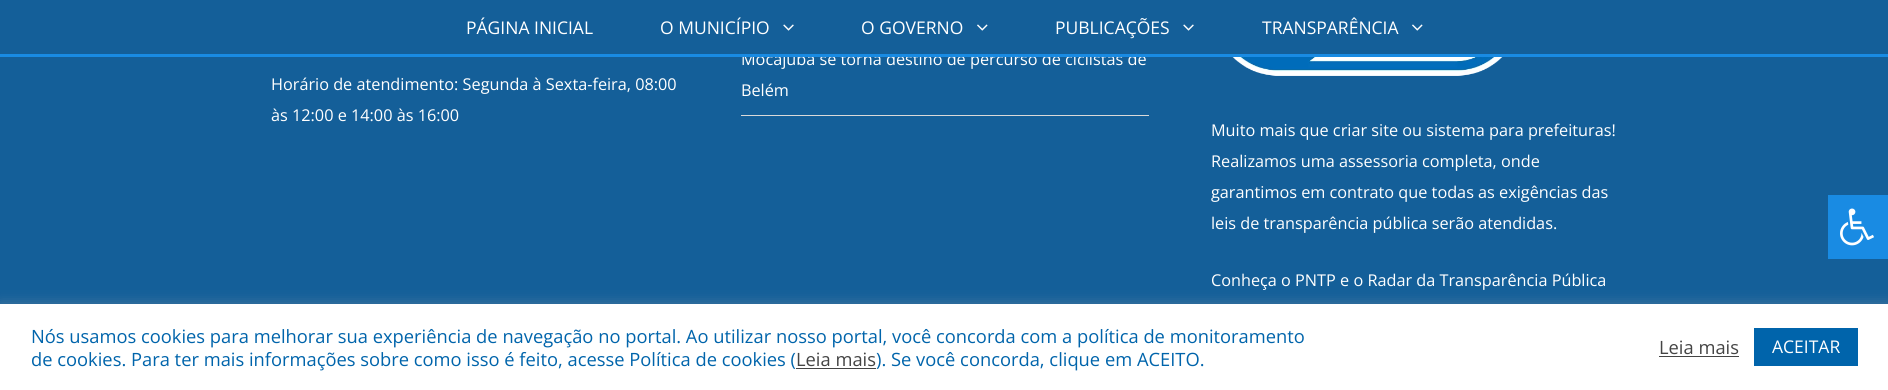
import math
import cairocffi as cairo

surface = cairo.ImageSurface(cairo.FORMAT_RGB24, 1888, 390)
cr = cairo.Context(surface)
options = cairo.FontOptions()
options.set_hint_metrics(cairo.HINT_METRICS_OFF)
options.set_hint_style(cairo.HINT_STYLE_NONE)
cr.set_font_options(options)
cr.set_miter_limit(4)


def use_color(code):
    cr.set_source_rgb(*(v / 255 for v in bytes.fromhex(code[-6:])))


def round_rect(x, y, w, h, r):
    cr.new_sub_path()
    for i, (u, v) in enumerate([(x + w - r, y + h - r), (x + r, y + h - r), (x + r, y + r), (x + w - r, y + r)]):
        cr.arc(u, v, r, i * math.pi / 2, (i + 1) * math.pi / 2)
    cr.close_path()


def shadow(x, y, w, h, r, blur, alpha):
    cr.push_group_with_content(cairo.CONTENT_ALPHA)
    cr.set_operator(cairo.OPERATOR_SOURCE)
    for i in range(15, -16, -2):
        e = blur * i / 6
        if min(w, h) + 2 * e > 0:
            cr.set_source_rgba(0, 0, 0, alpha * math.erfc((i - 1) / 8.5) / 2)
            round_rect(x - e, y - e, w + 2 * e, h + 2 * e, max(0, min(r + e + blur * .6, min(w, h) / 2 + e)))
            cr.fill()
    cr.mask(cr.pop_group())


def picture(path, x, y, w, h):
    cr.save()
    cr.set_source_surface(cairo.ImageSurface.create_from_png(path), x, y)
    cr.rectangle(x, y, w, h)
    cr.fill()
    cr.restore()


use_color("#145f99")
cr.paint()
cr.select_font_face("Open Sans")
cr.set_font_size(16.25)
use_color("#ffffff")
cr.move_to(741, 65)
cr.show_text("Mocajuba se torna destino de percurso de ciclistas de")
use_color("#145f99")
cr.rectangle(742, 52, 394, 2)
cr.fill()
use_color("#198be3")
cr.rectangle(0, 54, 1888, 3)
cr.fill()
cr.set_font_size(17.5)
use_color("#ffffff")
cr.move_to(466, 34)
cr.show_text("PÁGINA INICIAL")
cr.move_to(660, 34)
cr.show_text("O MUNICÍPIO")
picture("img1.png", 783, 24, 11, 7)
cr.move_to(861, 34)
cr.show_text("O GOVERNO")
picture("img2.png", 977, 24, 11, 7)
cr.move_to(1055, 34)
cr.show_text("PUBLICAÇÕES")
picture("img1.png", 1183, 24, 11, 7)
cr.move_to(1262, 34)
cr.show_text("TRANSPARÊNCIA")
picture("img2.png", 1412, 24, 11, 7)
cr.set_font_size(16.25)
cr.move_to(271, 90)
cr.show_text("Horário de atendimento: Segunda à Sexta-feira, 08:00")
cr.move_to(271, 121)
cr.show_text("às 12:00 e 14:00 às 16:00")
use_color("#d9d9d9")
cr.rectangle(741, 115, 408, 1)
cr.fill()
use_color("#ffffff")
cr.move_to(741, 96)
cr.show_text("Belém")
picture("img3.png", 1232, 57, 271, 19)
cr.move_to(1211, 136)
cr.show_text("Muito mais que criar site ou sistema para prefeituras!")
cr.move_to(1211, 167)
cr.show_text("Realizamos uma assessoria completa, onde")
cr.move_to(1211, 198)
cr.show_text("garantimos em contrato que todas as exigências das")
cr.move_to(1211, 229)
cr.show_text("leis de transparência pública serão atendidas.")
cr.move_to(1211, 286)
cr.show_text("Conheça o PNTP e o Radar da Transparência Pública")
use_color("#198be3")
cr.rectangle(1828, 195, 60, 64)
cr.fill()
picture("img4.png", 1840, 208, 34, 38)
use_color("#acabab")
shadow(0, 303, 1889, 86, 0, 6, 0.3)
use_color("#ffffff")
cr.rectangle(0, 304, 1888, 86)
cr.fill()
cr.set_font_size(18.33)
use_color("#0064ab")
cr.move_to(31, 343)
cr.show_text("Nós usamos cookies para melhorar sua experiência de navegação no portal. Ao utilizar nosso portal, você concorda com a política de monitoramento")
cr.move_to(31, 366)
cr.show_text("de cookies. Para ter mais informações sobre como isso é feito, acesse Política de cookies (")
use_color("#444444")
cr.move_to(796, 366)
cr.show_text("Leia mais")
cr.rectangle(796, 368, 80, 1)
cr.fill()
use_color("#0064ab")
cr.move_to(876, 366)
cr.show_text("). Se você concorda, clique em ACEITO.")
use_color("#444444")
cr.move_to(1659, 354)
cr.show_text("Leia mais")
cr.rectangle(1659, 356, 80, 1)
cr.fill()
use_color("#0064ab")
cr.rectangle(1754, 328, 104, 38)
cr.fill()
cr.set_font_size(17.5)
use_color("#ffffff")
cr.move_to(1772, 353)
cr.show_text("ACEITAR")
surface.write_to_png("result.png")
